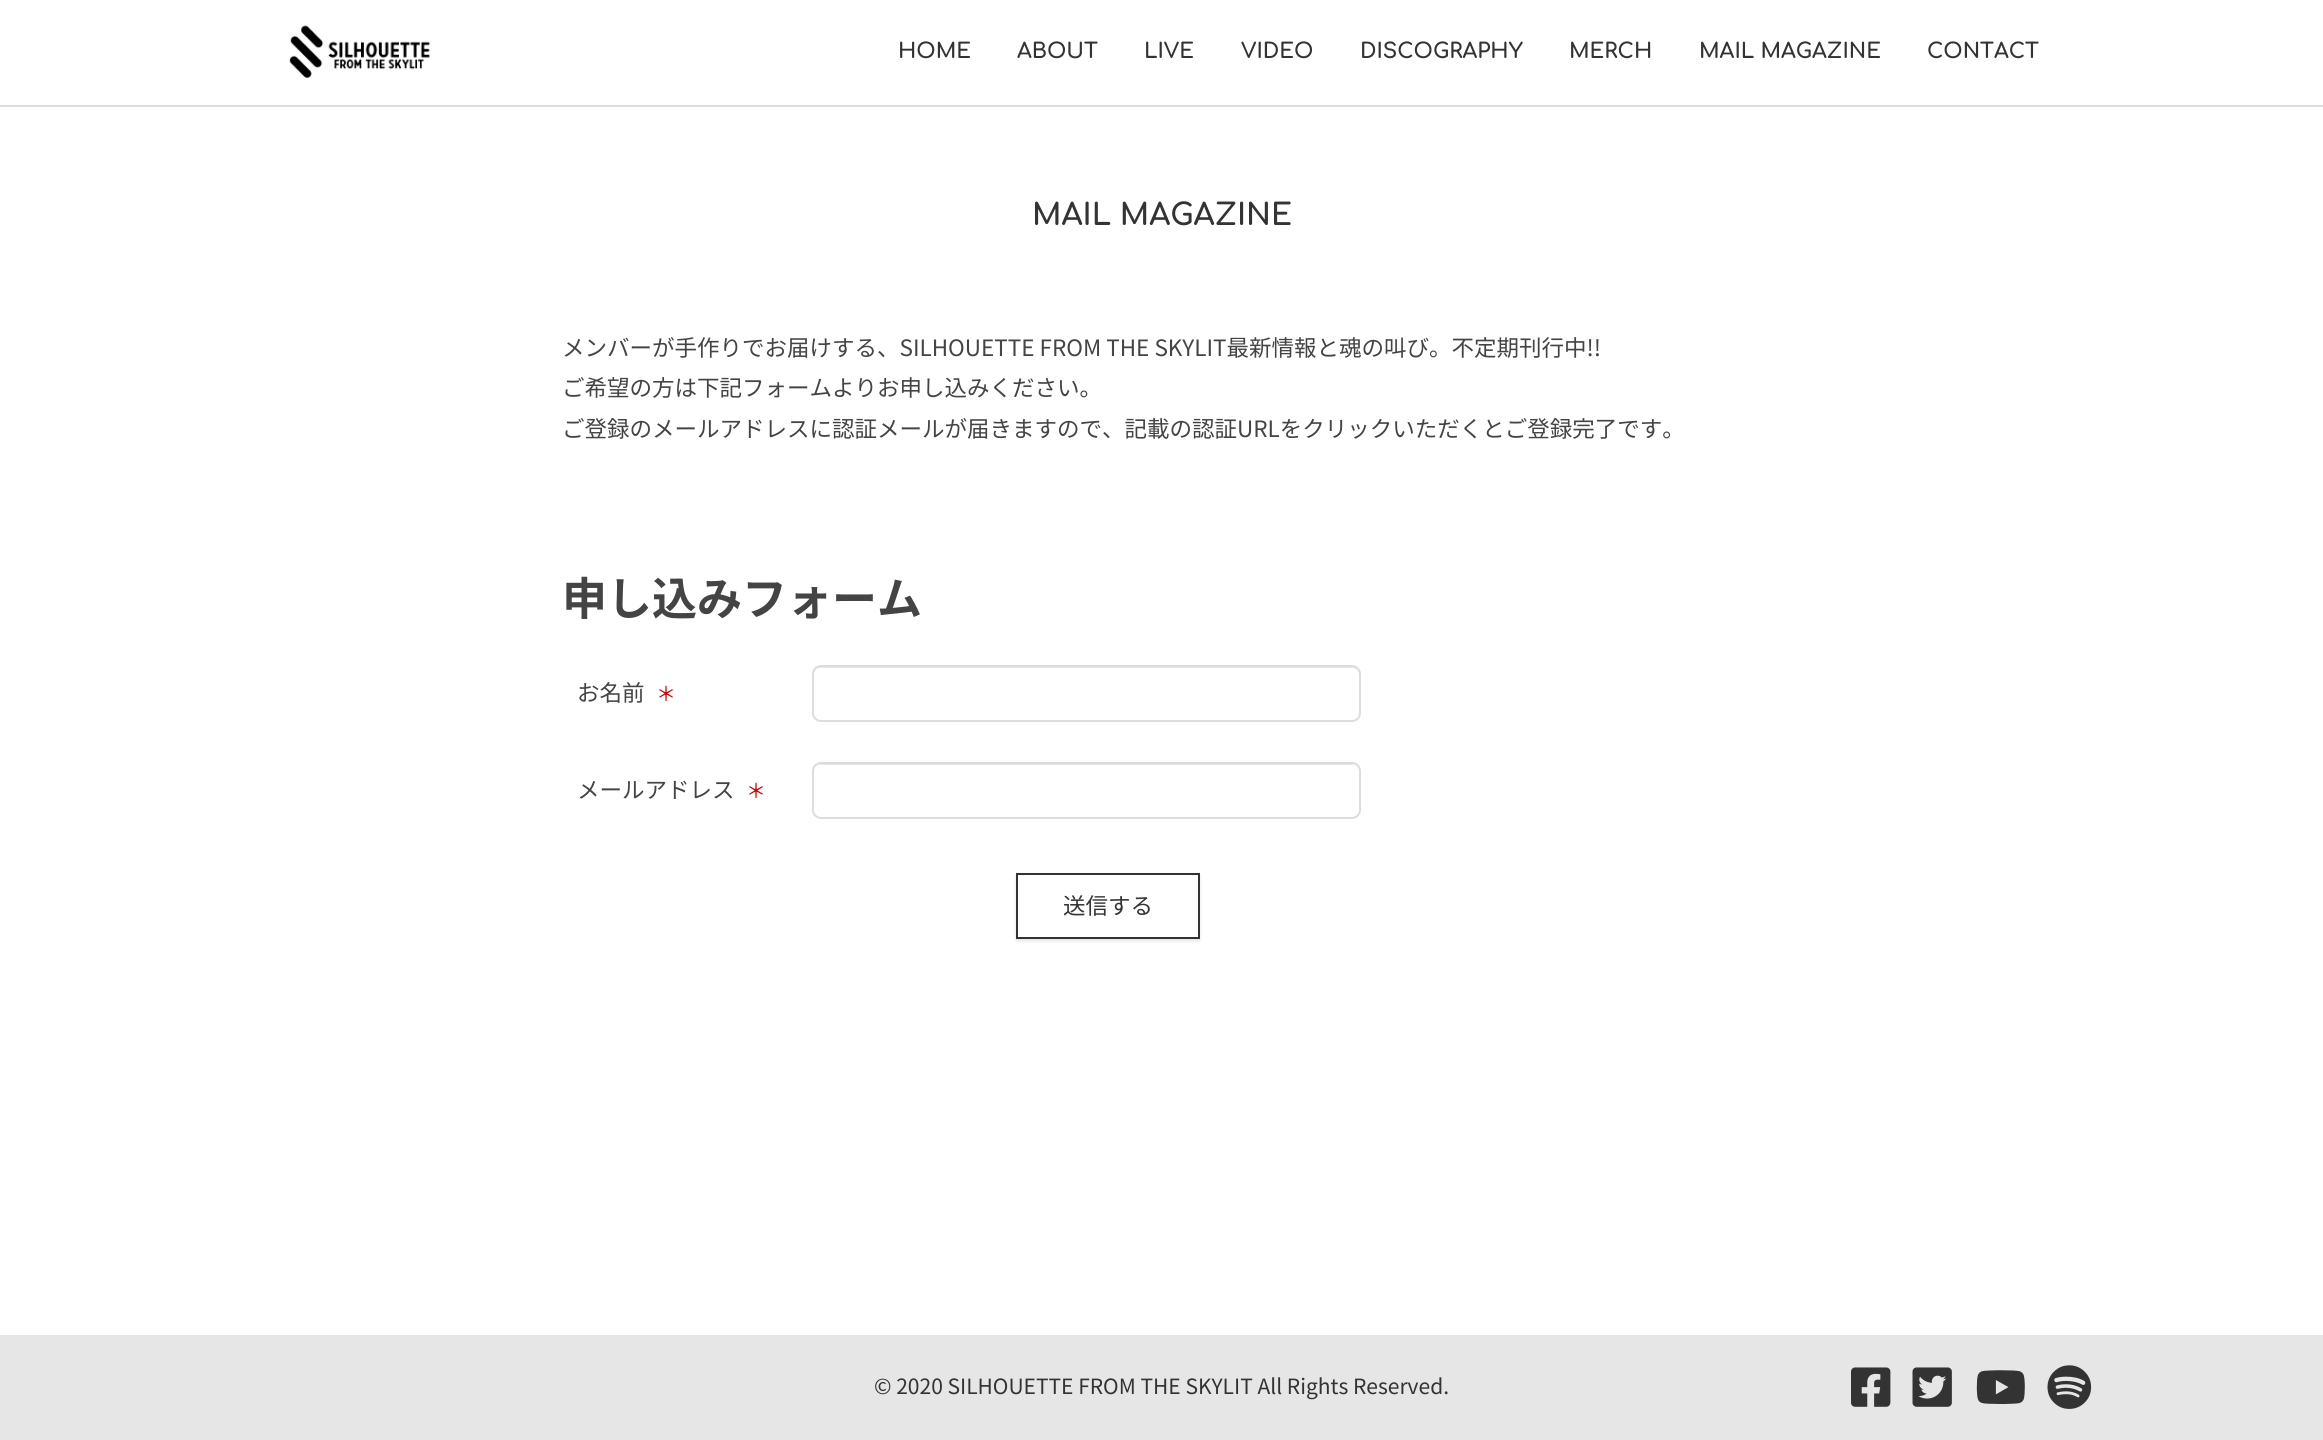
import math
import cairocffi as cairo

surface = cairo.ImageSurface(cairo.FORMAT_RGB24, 2323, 1440)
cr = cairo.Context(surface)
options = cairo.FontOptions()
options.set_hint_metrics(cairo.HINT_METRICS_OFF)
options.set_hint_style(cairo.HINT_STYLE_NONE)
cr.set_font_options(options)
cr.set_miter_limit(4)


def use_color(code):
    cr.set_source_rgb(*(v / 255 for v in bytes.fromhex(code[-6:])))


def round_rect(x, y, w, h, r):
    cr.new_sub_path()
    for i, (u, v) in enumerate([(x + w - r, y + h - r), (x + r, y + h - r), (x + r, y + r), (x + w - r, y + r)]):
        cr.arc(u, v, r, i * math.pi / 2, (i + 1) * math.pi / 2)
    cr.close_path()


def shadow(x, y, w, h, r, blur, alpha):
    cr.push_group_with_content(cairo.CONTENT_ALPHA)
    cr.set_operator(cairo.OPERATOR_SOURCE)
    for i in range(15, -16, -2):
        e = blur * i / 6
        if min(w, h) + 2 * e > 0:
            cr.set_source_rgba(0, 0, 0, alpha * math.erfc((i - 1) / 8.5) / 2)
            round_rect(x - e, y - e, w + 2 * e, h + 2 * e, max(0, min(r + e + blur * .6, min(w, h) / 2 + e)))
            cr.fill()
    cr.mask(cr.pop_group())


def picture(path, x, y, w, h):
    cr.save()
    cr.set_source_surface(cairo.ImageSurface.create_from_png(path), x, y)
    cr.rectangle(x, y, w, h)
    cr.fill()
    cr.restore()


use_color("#ffffff")
cr.paint()
use_color("#dddddd")
cr.rectangle(0, 105, 2323, 2)
cr.fill()
picture("img1.png", 289, 25, 141, 53)
cr.select_font_face("Comfortaa", cairo.FONT_SLANT_NORMAL, cairo.FONT_WEIGHT_BOLD)
cr.set_font_size(21)
use_color("#333333")
cr.move_to(898, 58)
cr.show_text("HOME")
cr.move_to(1017, 58)
cr.show_text("ABOUT")
cr.move_to(1144, 58)
cr.show_text("LIVE")
cr.move_to(1241, 58)
cr.show_text("VIDEO")
cr.move_to(1360, 58)
cr.show_text("DISCOGRAPHY")
cr.move_to(1569, 58)
cr.show_text("MERCH")
cr.move_to(1699, 58)
cr.show_text("MAIL MAGAZINE")
cr.move_to(1927, 58)
cr.show_text("CONTACT")
cr.set_font_size(30)
cr.move_to(1032, 225)
cr.show_text("MAIL MAGAZINE")
cr.select_font_face("Noto Sans JP")
cr.set_font_size(22.5)
use_color("#444444")
cr.move_to(562, 356)
cr.show_text("メンバーが手作りでお届けする、SILHOUETTE FROM THE SKYLIT最新情報と魂の叫び。不定期刊行中!!")
cr.move_to(562, 396)
cr.show_text("ご希望の方は下記フォームよりお申し込みください。")
cr.move_to(562, 437)
cr.show_text("ご登録のメールアドレスに認証メールが届きますので、記載の認証URLをクリックいただくとご登録完了です。")
cr.select_font_face("Noto Sans JP", cairo.FONT_SLANT_NORMAL, cairo.FONT_WEIGHT_BOLD)
cr.set_font_size(45)
cr.move_to(562, 615)
cr.show_text("申し込みフォーム")
cr.select_font_face("Noto Sans JP")
cr.set_font_size(22.5)
cr.move_to(577, 701)
cr.show_text("お名前")
cr.set_font_size(20)
use_color("#cc0000")
cr.move_to(656, 701)
cr.show_text("＊")
use_color("#e6e6e6")
cr.new_path()
cr.move_to(820, 668)
cr.line_to(1352, 668)
cr.curve_to(1356, 668, 1359, 671, 1359, 675)
cr.line_to(1359, 674)
cr.curve_to(1359, 670, 1355, 666, 1351, 666)
cr.line_to(821, 666)
cr.curve_to(817, 666, 813, 670, 813, 674)
cr.line_to(813, 675)
cr.curve_to(813, 671, 816, 668, 820, 668)
cr.close_path()
cr.fill()
round_rect(813, 666, 547, 55, 8)
use_color("#dddddd")
cr.stroke()
cr.set_font_size(22.5)
use_color("#444444")
cr.move_to(577, 798)
cr.show_text("メールアドレス")
cr.set_font_size(20)
use_color("#cc0000")
cr.move_to(746, 798)
cr.show_text("＊")
use_color("#e6e6e6")
cr.new_path()
cr.move_to(820, 765)
cr.line_to(1352, 765)
cr.curve_to(1356, 765, 1359, 768, 1359, 772)
cr.curve_to(1359, 768, 1355, 764, 1351, 764)
cr.line_to(821, 764)
cr.curve_to(817, 764, 813, 768, 813, 772)
cr.curve_to(813, 768, 816, 765, 820, 765)
cr.close_path()
cr.fill()
round_rect(813, 763, 547, 55, 8)
use_color("#dddddd")
cr.stroke()
cr.save()
cr.set_fill_rule(cairo.FILL_RULE_EVEN_ODD)
cr.new_path()
cr.move_to(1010, 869)
cr.line_to(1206, 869)
cr.line_to(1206, 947)
cr.line_to(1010, 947)
cr.close_path()
cr.move_to(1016, 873)
cr.line_to(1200, 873)
cr.line_to(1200, 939)
cr.line_to(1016, 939)
cr.close_path()
cr.clip()
use_color("#000000")
shadow(1016, 875, 184, 66, 0, 1.5, 0.1)
cr.restore()
cr.rectangle(1017, 874, 182, 64)
use_color("#333333")
cr.stroke()
cr.set_font_size(22.5)
cr.move_to(1063, 914)
cr.show_text("送信する")
use_color("#e6e6e6")
cr.rectangle(0, 1335, 2323, 105)
cr.fill()
cr.set_font_size(21)
use_color("#333333")
cr.move_to(874, 1394)
cr.show_text("© 2020 SILHOUETTE FROM THE SKYLIT All Rights Reserved.")
picture("img2.png", 1851, 1367, 40, 40)
picture("img3.png", 1912, 1367, 40, 40)
picture("img4.png", 1976, 1370, 49, 34)
picture("img5.png", 2047, 1365, 45, 44)
surface.write_to_png("result.png")
